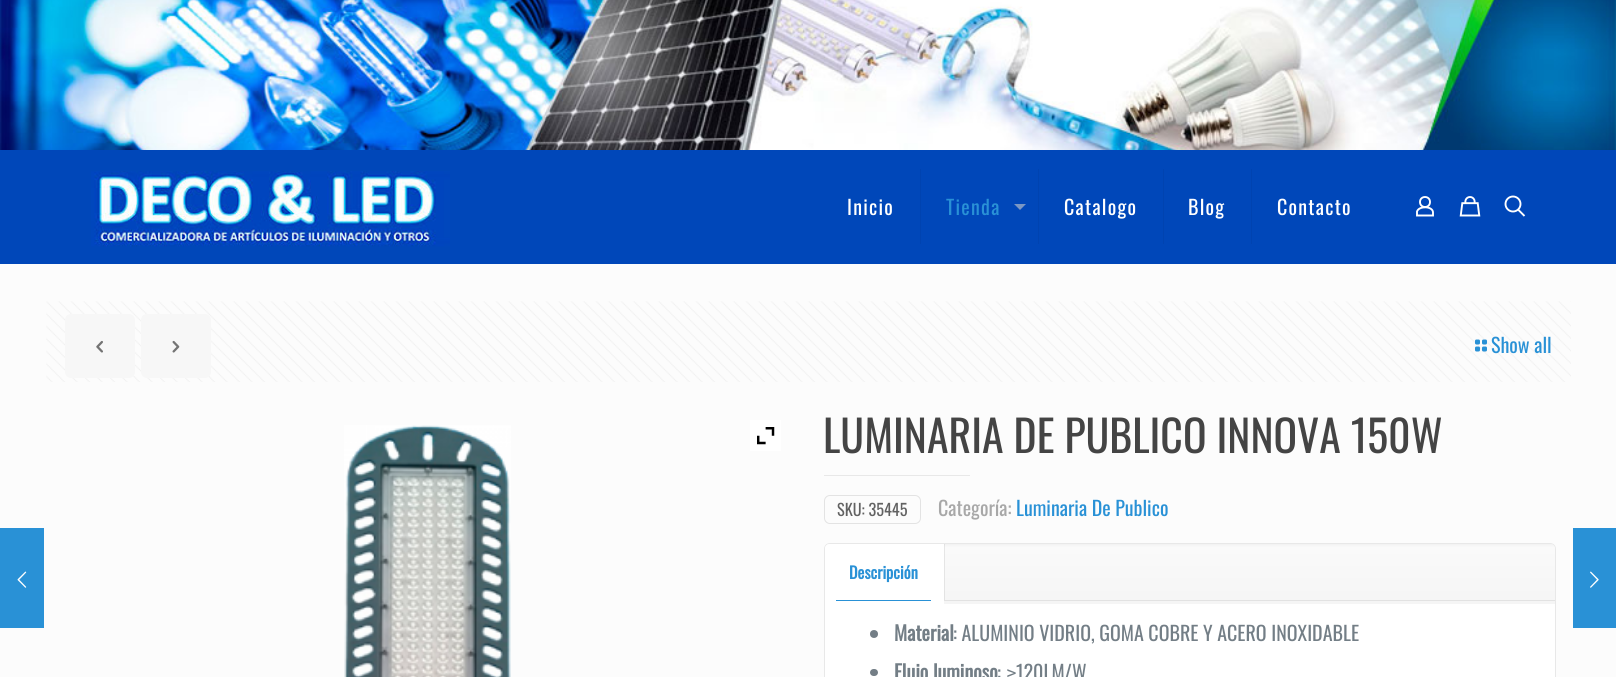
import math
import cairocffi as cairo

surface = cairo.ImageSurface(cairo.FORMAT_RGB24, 1616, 677)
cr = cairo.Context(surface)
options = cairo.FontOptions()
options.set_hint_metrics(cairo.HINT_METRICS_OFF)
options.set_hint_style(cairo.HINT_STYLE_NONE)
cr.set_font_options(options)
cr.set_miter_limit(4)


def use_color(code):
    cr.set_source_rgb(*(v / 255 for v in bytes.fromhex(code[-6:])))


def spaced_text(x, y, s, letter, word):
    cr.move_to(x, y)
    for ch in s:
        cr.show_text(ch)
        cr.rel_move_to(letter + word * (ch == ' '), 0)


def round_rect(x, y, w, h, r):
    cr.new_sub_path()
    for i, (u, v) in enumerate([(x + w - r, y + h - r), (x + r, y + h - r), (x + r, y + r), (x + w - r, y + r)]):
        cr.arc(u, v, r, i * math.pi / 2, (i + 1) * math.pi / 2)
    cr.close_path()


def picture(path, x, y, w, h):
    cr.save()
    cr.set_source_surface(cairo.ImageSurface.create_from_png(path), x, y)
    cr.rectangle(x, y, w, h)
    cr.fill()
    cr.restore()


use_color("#fcfcfc")
cr.paint()
use_color("#2991d6")
cr.rectangle(0, 528, 44, 100)
cr.fill()
picture("img1.png", 17, 571, 10, 17)
picture("img2.png", 0, 0, 1616, 150)
use_color("#0047b9")
cr.rectangle(0, 150, 1616, 114)
cr.fill()
picture("img3.png", 91, 171, 359, 76)
use_color("#0043b0")
cr.rectangle(920, 169, 1, 75)
cr.fill()
cr.select_font_face("Oswald")
cr.set_font_size(20)
use_color("#ffffff")
spaced_text(847, 215, "Inicio", 1.25, 0)
use_color("#0043b0")
cr.rectangle(1038, 169, 1, 75)
cr.fill()
use_color("#2991d6")
spaced_text(946, 215, "Tienda", 1.25, 0)
use_color("#7a97c4")
cr.new_path()
cr.move_to(1014, 204)
cr.line_to(1026, 204)
cr.line_to(1020, 210)
cr.close_path()
cr.fill()
use_color("#0043b0")
cr.rectangle(1163, 169, 1, 75)
cr.fill()
use_color("#ffffff")
spaced_text(1064, 215, "Catalogo", 1.25, 0)
use_color("#0043b0")
cr.rectangle(1251, 169, 1, 75)
cr.fill()
use_color("#ffffff")
spaced_text(1188, 215, "Blog", 1.25, 0)
spaced_text(1277, 215, "Contacto", 1.25, 0)
cr.new_path()
cr.arc(1425, 202, 5, 0, 2 * math.pi)
cr.set_line_width(1.9)
cr.stroke()
cr.new_path()
cr.move_to(1433, 212.5)
cr.line_to(1433, 215.5)
cr.line_to(1417, 215.5)
cr.line_to(1417, 211.5)
cr.curve_to(1419, 205.5, 1433, 206, 1433, 212.5)
cr.close_path()
cr.stroke()
picture("img4.png", 1459, 196, 22, 21)
cr.arc(1513, 204, 7.5, 0, 2 * math.pi)
cr.stroke()
cr.new_path()
cr.move_to(1518, 209.5)
cr.line_to(1524.5, 216)
cr.stroke()
picture("img5.png", 46, 301, 1525, 81)
use_color("#f7f7f7")
round_rect(65, 314, 70, 64, 6)
cr.fill()
picture("img6.png", 96, 340, 7, 13)
round_rect(141, 314, 70, 64, 6)
cr.fill()
picture("img7.png", 172, 340, 8, 13)
picture("img8.png", 1475, 339, 12, 13)
use_color("#2991d6")
cr.move_to(1491, 353)
cr.show_text("Show all")
picture("img9.png", 344, 425, 167, 252)
use_color("#ffffff")
cr.rectangle(750, 420, 31, 31)
cr.fill()
picture("img10.png", 757, 427, 18, 18)
cr.set_font_size(43.75)
use_color("#444444")
cr.move_to(823, 453)
cr.show_text("LUMINARIA DE PUBLICO INNOVA 150W")
use_color("#e8e8e8")
cr.rectangle(824, 475, 146, 1)
cr.fill()
round_rect(824.5, 495.5, 96, 28, 5.5)
use_color("#e3e3e3")
cr.set_line_width(1)
cr.stroke()
cr.set_font_size(16.25)
use_color("#626262")
cr.move_to(837, 516)
cr.show_text("SKU: 35445")
cr.set_font_size(20)
use_color("#a8a8a8")
cr.move_to(938, 516)
cr.show_text("Categoría:")
use_color("#2991d6")
cr.move_to(1016, 516)
cr.show_text("Luminaria De Publico")
round_rect(824.5, 543.5, 731, 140, 5.5)
use_color("#e8e8e8")
cr.stroke()
picture("img11.png", 825, 544, 730, 56)
use_color("#e2e2e2")
cr.rectangle(944, 600, 611, 1)
cr.fill()
cr.set_source_rgba(0, 0, 0, 0.08)
cr.rectangle(944, 544, 1, 56)
cr.fill()
use_color("#ffffff")
cr.new_path()
cr.move_to(830, 544)
cr.line_to(944, 544)
cr.line_to(944, 600)
cr.line_to(825, 600)
cr.line_to(825, 549)
cr.curve_to(825, 546, 827, 544, 830, 544)
cr.close_path()
cr.fill()
cr.select_font_face("Oswald", cairo.FONT_SLANT_NORMAL, cairo.FONT_WEIGHT_BOLD)
cr.set_font_size(16.25)
use_color("#2991d6")
cr.move_to(849, 579)
cr.show_text("Descripción")
use_color("#ffffff")
cr.rectangle(825, 600, 119, 4)
cr.fill()
use_color("#2991d6")
cr.rectangle(836, 600, 95, 1)
cr.fill()
use_color("#ffffff")
cr.rectangle(825, 604, 730, 73)
cr.fill()
use_color("#f5f5f5")
cr.rectangle(944, 601, 611, 3)
cr.fill()
use_color("#737e86")
cr.arc(874, 634, 4, 0, 2 * math.pi)
cr.fill()
cr.set_font_size(20)
cr.move_to(894, 641)
cr.show_text("Material")
cr.select_font_face("Oswald")
cr.move_to(953, 641)
cr.show_text(": ALUMINIO VIDRIO, GOMA COBRE Y ACERO INOXIDABLE")
round_rect(870, 669, 8, 7, 3.5)
cr.fill()
cr.select_font_face("Oswald", cairo.FONT_SLANT_NORMAL, cairo.FONT_WEIGHT_BOLD)
cr.move_to(894, 680)
cr.show_text("Flujo luminoso")
cr.select_font_face("Oswald")
cr.move_to(997, 680)
cr.show_text(":")
cr.select_font_face("Roboto")
cr.move_to(1006, 680)
cr.show_text("≥")
cr.select_font_face("Oswald")
cr.move_to(1016, 680)
cr.show_text("120LM/W")
use_color("#2991d6")
cr.rectangle(1573, 528, 43, 100)
cr.fill()
picture("img12.png", 1590, 571, 9, 17)
surface.write_to_png("result.png")
